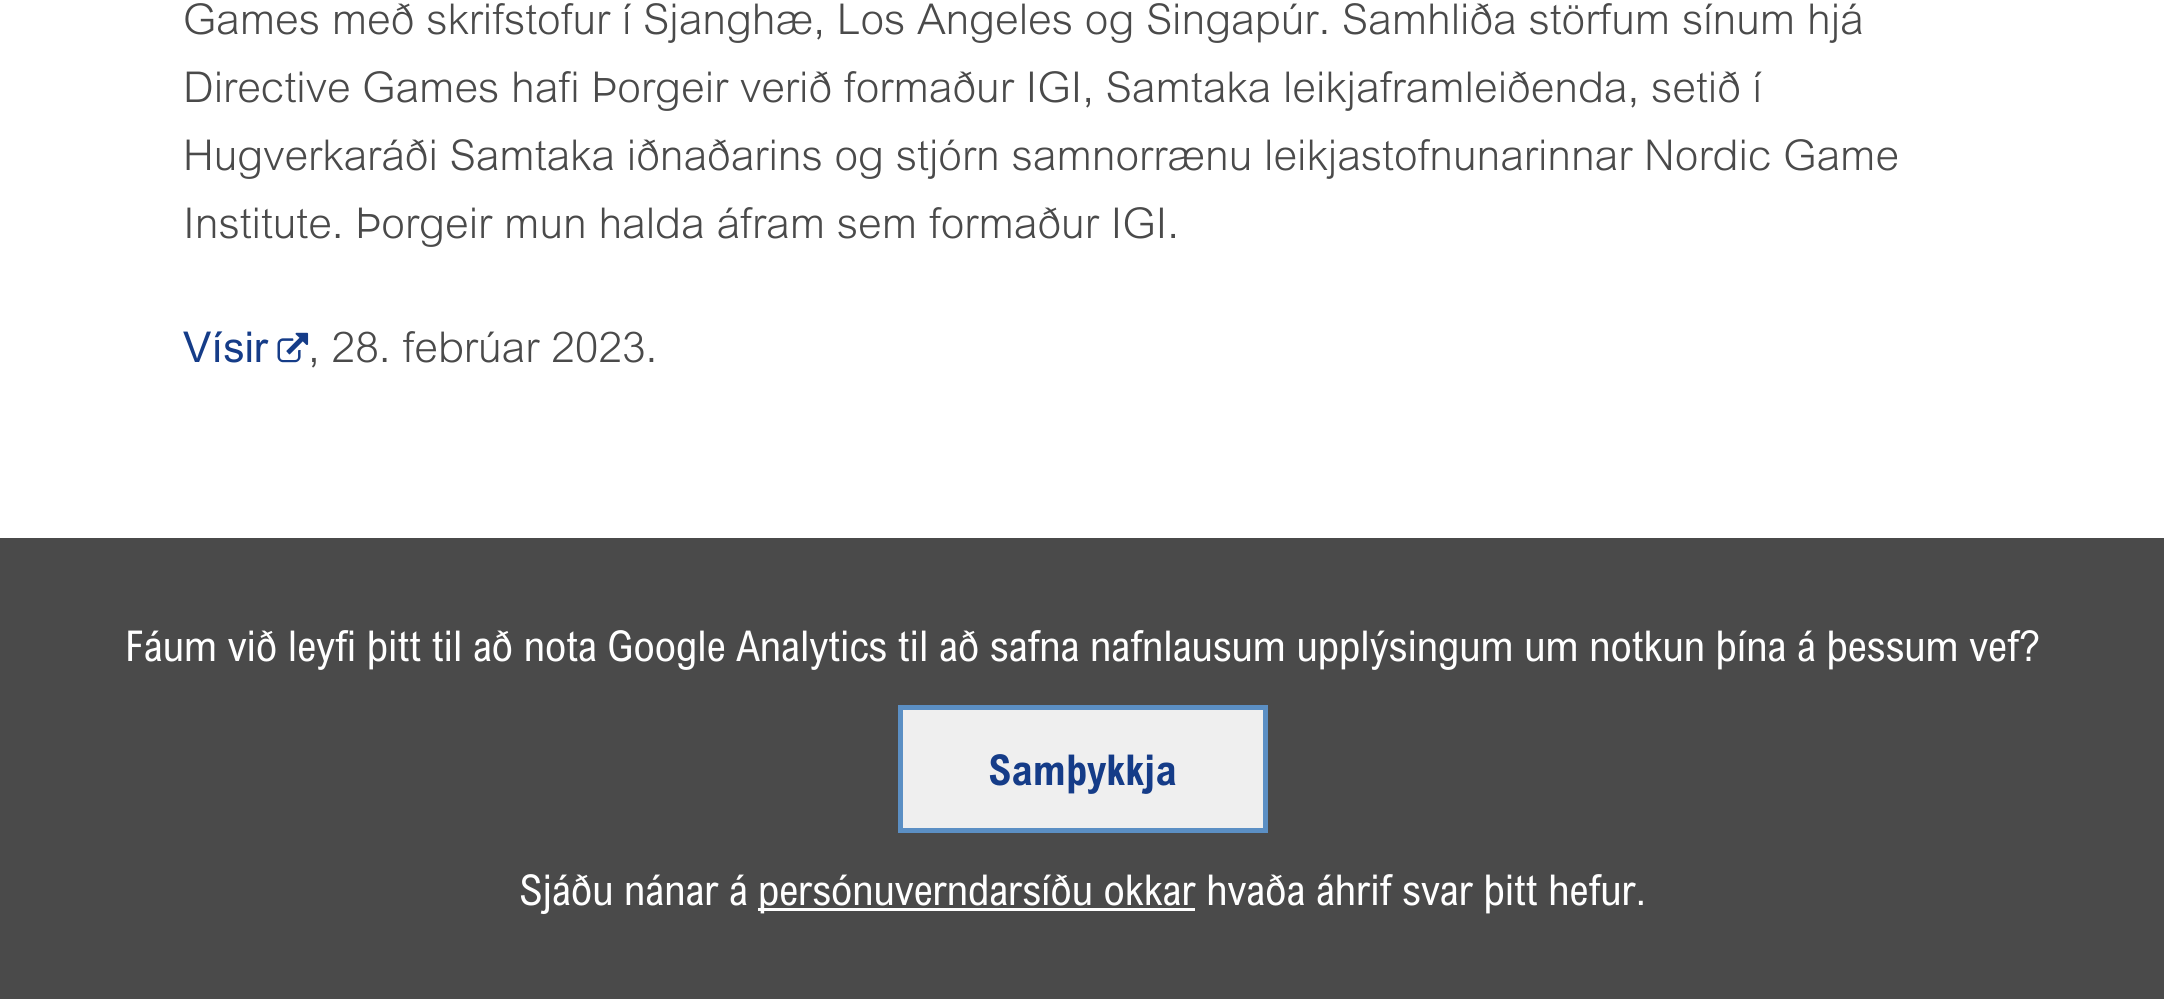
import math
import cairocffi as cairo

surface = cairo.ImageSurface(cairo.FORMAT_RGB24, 2164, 999)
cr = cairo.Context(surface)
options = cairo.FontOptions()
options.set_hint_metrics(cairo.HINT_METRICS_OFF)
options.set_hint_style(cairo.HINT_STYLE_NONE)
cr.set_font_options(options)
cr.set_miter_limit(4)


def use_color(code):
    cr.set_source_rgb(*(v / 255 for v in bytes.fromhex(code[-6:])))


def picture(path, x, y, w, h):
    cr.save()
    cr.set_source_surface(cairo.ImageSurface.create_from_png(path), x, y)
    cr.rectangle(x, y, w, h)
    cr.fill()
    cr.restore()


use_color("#ffffff")
cr.paint()
cr.select_font_face("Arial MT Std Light")
cr.set_font_size(42.5)
use_color("#4a4a4a")
cr.move_to(183, 34)
cr.show_text("Games með skrifstofur í Sjanghæ, Los Angeles og Singapúr. Samhliða störfum sínum hjá")
cr.move_to(183, 102)
cr.show_text("Directive Games hafi Þorgeir verið formaður IGI, Samtaka leikjaframleiðenda, setið í")
cr.move_to(183, 170)
cr.show_text("Hugverkaráði Samtaka iðnaðarins og stjórn samnorrænu leikjastofnunarinnar Nordic Game")
cr.move_to(183, 238)
cr.show_text("Institute. Þorgeir mun halda áfram sem formaður IGI.")
cr.select_font_face("Arial MT Std")
use_color("#153c88")
cr.move_to(183, 362)
cr.show_text("Vísir")
picture("img1.png", 277, 332, 32, 31)
cr.select_font_face("Arial MT Std Light")
use_color("#4a4a4a")
cr.move_to(308, 362)
cr.show_text(", 28. febrúar 2023.")
cr.rectangle(0, 538, 2164, 461)
cr.fill()
cr.select_font_face("Arial MT Std Medium")
use_color("#ffffff")
cr.move_to(125, 661)
cr.show_text("Fáum við leyfi þitt til að nota Google Analytics til að safna nafnlausum upplýsingum um notkun þína á þessum vef?")
use_color("#efefef")
cr.rectangle(900.5, 707.5, 365, 123)
cr.fill_preserve()
use_color("#5b8fc4")
cr.set_line_width(5)
cr.stroke()
cr.select_font_face("Arial MT Std", cairo.FONT_SLANT_NORMAL, cairo.FONT_WEIGHT_BOLD)
use_color("#153c88")
cr.move_to(988, 785)
cr.show_text("Samþykkja")
cr.select_font_face("Arial MT Std Medium")
use_color("#ffffff")
cr.move_to(519, 905)
cr.show_text("Sjáðu nánar á")
cr.rectangle(758, 908, 437, 3)
cr.fill()
cr.move_to(758, 905)
cr.show_text("persónuverndarsíðu okkar hvaða áhrif svar þitt hefur.")
surface.write_to_png("result.png")
